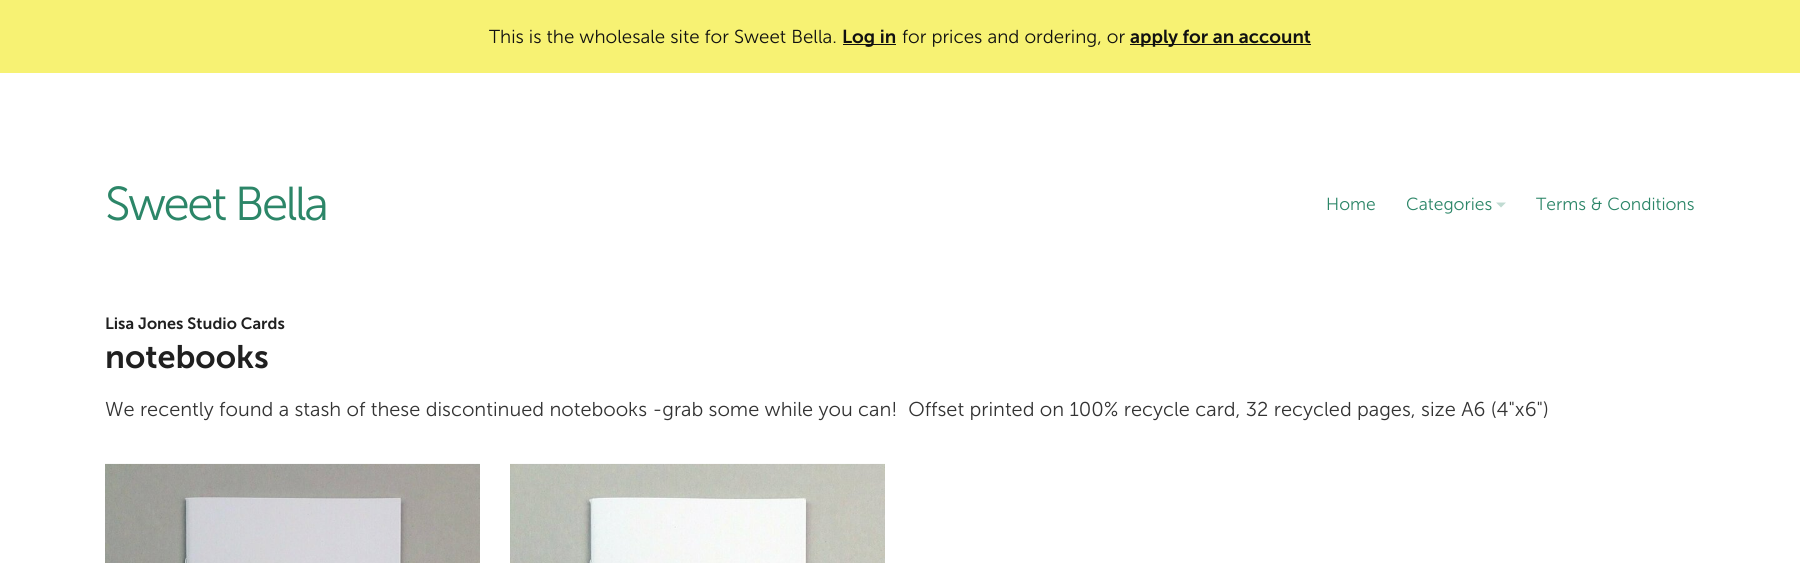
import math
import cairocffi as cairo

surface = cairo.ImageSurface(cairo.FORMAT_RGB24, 1800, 563)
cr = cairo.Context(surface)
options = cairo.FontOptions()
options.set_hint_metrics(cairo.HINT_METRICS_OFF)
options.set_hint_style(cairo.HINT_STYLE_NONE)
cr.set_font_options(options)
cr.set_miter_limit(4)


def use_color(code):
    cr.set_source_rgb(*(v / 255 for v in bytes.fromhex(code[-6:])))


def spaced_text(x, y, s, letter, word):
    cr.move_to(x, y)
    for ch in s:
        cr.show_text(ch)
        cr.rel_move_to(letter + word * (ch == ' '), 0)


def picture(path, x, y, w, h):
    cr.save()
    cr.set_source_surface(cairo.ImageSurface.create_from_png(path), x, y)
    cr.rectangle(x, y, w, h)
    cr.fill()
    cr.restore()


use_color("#ffffff")
cr.paint()
use_color("#f7f273")
cr.rectangle(0, 0, 1800, 73)
cr.fill()
cr.select_font_face("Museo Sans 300 Light")
cr.set_font_size(18.75)
use_color("#111111")
cr.move_to(489, 43)
cr.show_text("This is the wholesale site for Sweet Bella.")
cr.rectangle(843, 44, 53, 1)
cr.fill()
cr.select_font_face("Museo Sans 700 SemiBold")
cr.move_to(842, 43)
cr.show_text("Log in")
cr.select_font_face("Museo Sans 300 Light")
cr.move_to(902, 43)
cr.show_text("for prices and ordering, or")
cr.rectangle(1130, 44, 181, 1)
cr.fill()
cr.select_font_face("Museo Sans 700 SemiBold")
cr.move_to(1130, 43)
cr.show_text("apply for an account")
cr.select_font_face("Museo Sans 300 Light")
cr.set_font_size(47.5)
use_color("#2c8668")
spaced_text(105, 220, "Sweet Bella", -2.5, 0)
cr.set_font_size(17.5)
cr.move_to(1326, 210)
cr.show_text("Home")
cr.move_to(1406, 210)
cr.show_text("Categories")
use_color("#c0dbd2")
cr.new_path()
cr.move_to(1496, 202.5)
cr.line_to(1506, 202.5)
cr.line_to(1501, 207.5)
cr.close_path()
cr.fill()
use_color("#2c8668")
cr.move_to(1536, 210)
cr.show_text("Terms & Conditions")
cr.select_font_face("Museo Sans 700 SemiBold")
cr.set_font_size(16.25)
use_color("#202020")
cr.move_to(105, 329)
cr.show_text("Lisa Jones Studio Cards")
cr.set_font_size(32.5)
cr.move_to(105, 368)
cr.show_text("notebooks")
cr.select_font_face("Museo Sans 300 Light")
cr.set_font_size(20)
use_color("#333333")
cr.move_to(105, 416)
cr.show_text("We recently found a stash of these discontinued notebooks -grab some while you can!  Offset printed on 100% recycle card, 32 recycled pages, size A6 (4\"x6\")")
picture("img1.png", 105, 463, 375, 100)
picture("img2.png", 510, 463, 375, 100)
surface.write_to_png("result.png")
